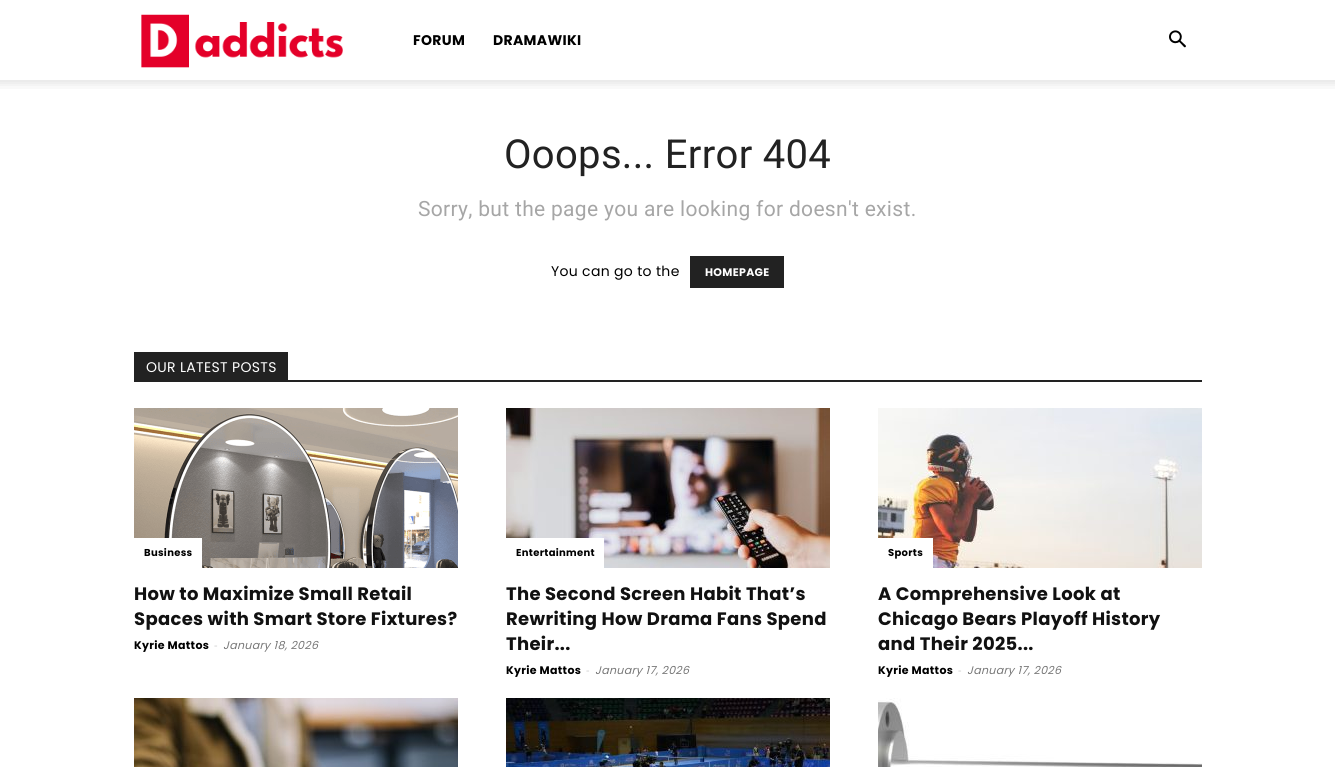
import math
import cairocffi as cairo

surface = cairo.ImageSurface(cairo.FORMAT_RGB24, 1335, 767)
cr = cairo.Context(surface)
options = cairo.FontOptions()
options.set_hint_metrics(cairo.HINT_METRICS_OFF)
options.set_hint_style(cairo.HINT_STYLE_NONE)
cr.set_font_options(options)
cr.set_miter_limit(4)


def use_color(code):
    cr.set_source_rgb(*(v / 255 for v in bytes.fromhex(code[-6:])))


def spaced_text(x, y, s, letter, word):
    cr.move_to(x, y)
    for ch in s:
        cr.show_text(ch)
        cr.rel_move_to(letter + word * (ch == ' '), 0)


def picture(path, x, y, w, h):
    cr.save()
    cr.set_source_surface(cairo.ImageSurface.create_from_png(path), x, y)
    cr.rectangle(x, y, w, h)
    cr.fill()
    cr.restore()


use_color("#ffffff")
cr.paint()
picture("img1.png", 141, 14, 202, 54)
cr.select_font_face("Poppins", cairo.FONT_SLANT_NORMAL, cairo.FONT_WEIGHT_BOLD)
cr.set_font_size(14)
use_color("#000000")
spaced_text(413, 45, "FORUM", 0.32, 0)
spaced_text(493, 45, "DRAMAWIKI", 0.32, 0)
picture("img2.png", 1169, 30, 17, 18)
picture("img3.png", 0, 80, 1335, 9)
cr.select_font_face("Roboto")
cr.set_font_size(40)
use_color("#222222")
spaced_text(504, 168, "Ooops... Error 404", 0.32, 0)
cr.set_font_size(21)
use_color("#a6a6a6")
spaced_text(418, 216, "Sorry, but the page you are looking for doesn't exist.", 0.32, 0)
cr.select_font_face("Poppins")
cr.set_font_size(14)
use_color("#000000")
spaced_text(551, 276, "You can go to the", 0.32, 0)
use_color("#222222")
cr.rectangle(690, 256, 94, 32)
cr.fill()
cr.select_font_face("Poppins", cairo.FONT_SLANT_NORMAL, cairo.FONT_WEIGHT_BOLD)
cr.set_font_size(11)
use_color("#ffffff")
spaced_text(705, 276, "HOMEPAGE", 0.32, 0)
use_color("#222222")
cr.rectangle(134, 380, 1068, 2)
cr.fill()
cr.rectangle(134, 352, 154, 28)
cr.fill()
cr.select_font_face("Poppins")
cr.set_font_size(14)
use_color("#ffffff")
spaced_text(146, 372, "OUR LATEST POSTS", 0.32, 0)
picture("img4.png", 134, 408, 324, 160)
cr.rectangle(134, 538, 68, 30)
cr.fill()
cr.select_font_face("Poppins", cairo.FONT_SLANT_NORMAL, cairo.FONT_WEIGHT_BOLD)
cr.set_font_size(10)
use_color("#000000")
spaced_text(144, 556, "Business", 0.32, 0)
cr.set_font_size(18)
use_color("#111111")
spaced_text(134, 600, "How to Maximize Small Retail", 0.32, 0)
spaced_text(134, 625, "Spaces with Smart Store Fixtures?", 0.32, 0)
cr.set_font_size(11)
use_color("#000000")
spaced_text(134, 649, "Kyrie Mattos", 0.32, 0)
cr.select_font_face("Open Sans")
use_color("#cccccc")
spaced_text(214, 649, "-", 0.32, 0)
cr.select_font_face("Poppins", cairo.FONT_SLANT_ITALIC)
use_color("#767676")
spaced_text(223, 649, "January 18, 2026", 0.32, 0)
picture("img5.png", 506, 408, 324, 160)
use_color("#ffffff")
cr.rectangle(506, 538, 98, 30)
cr.fill()
cr.select_font_face("Poppins", cairo.FONT_SLANT_NORMAL, cairo.FONT_WEIGHT_BOLD)
cr.set_font_size(10)
use_color("#000000")
spaced_text(516, 556, "Entertainment", 0.32, 0)
cr.set_font_size(18)
use_color("#111111")
spaced_text(506, 600, "The Second Screen Habit That’s", 0.32, 0)
spaced_text(506, 625, "Rewriting How Drama Fans Spend", 0.32, 0)
spaced_text(506, 650, "Their...", 0.32, 0)
cr.set_font_size(11)
use_color("#000000")
spaced_text(506, 674, "Kyrie Mattos", 0.32, 0)
cr.select_font_face("Open Sans")
use_color("#cccccc")
spaced_text(586, 674, "-", 0.32, 0)
cr.select_font_face("Poppins", cairo.FONT_SLANT_ITALIC)
use_color("#767676")
spaced_text(595, 674, "January 17, 2026", 0.32, 0)
picture("img6.png", 878, 408, 324, 160)
use_color("#ffffff")
cr.rectangle(878, 538, 55, 30)
cr.fill()
cr.select_font_face("Poppins", cairo.FONT_SLANT_NORMAL, cairo.FONT_WEIGHT_BOLD)
cr.set_font_size(10)
use_color("#000000")
spaced_text(888, 556, "Sports", 0.32, 0)
cr.set_font_size(18)
use_color("#111111")
spaced_text(878, 600, "A Comprehensive Look at", 0.32, 0)
spaced_text(878, 625, "Chicago Bears Playoff History", 0.32, 0)
spaced_text(878, 650, "and Their 2025...", 0.32, 0)
cr.set_font_size(11)
use_color("#000000")
spaced_text(878, 674, "Kyrie Mattos", 0.32, 0)
cr.select_font_face("Open Sans")
use_color("#cccccc")
spaced_text(958, 674, "-", 0.32, 0)
cr.select_font_face("Poppins", cairo.FONT_SLANT_ITALIC)
use_color("#767676")
spaced_text(967, 674, "January 17, 2026", 0.32, 0)
picture("img7.png", 134, 698, 324, 69)
picture("img8.png", 506, 698, 324, 69)
picture("img9.png", 878, 698, 324, 69)
surface.write_to_png("result.png")
